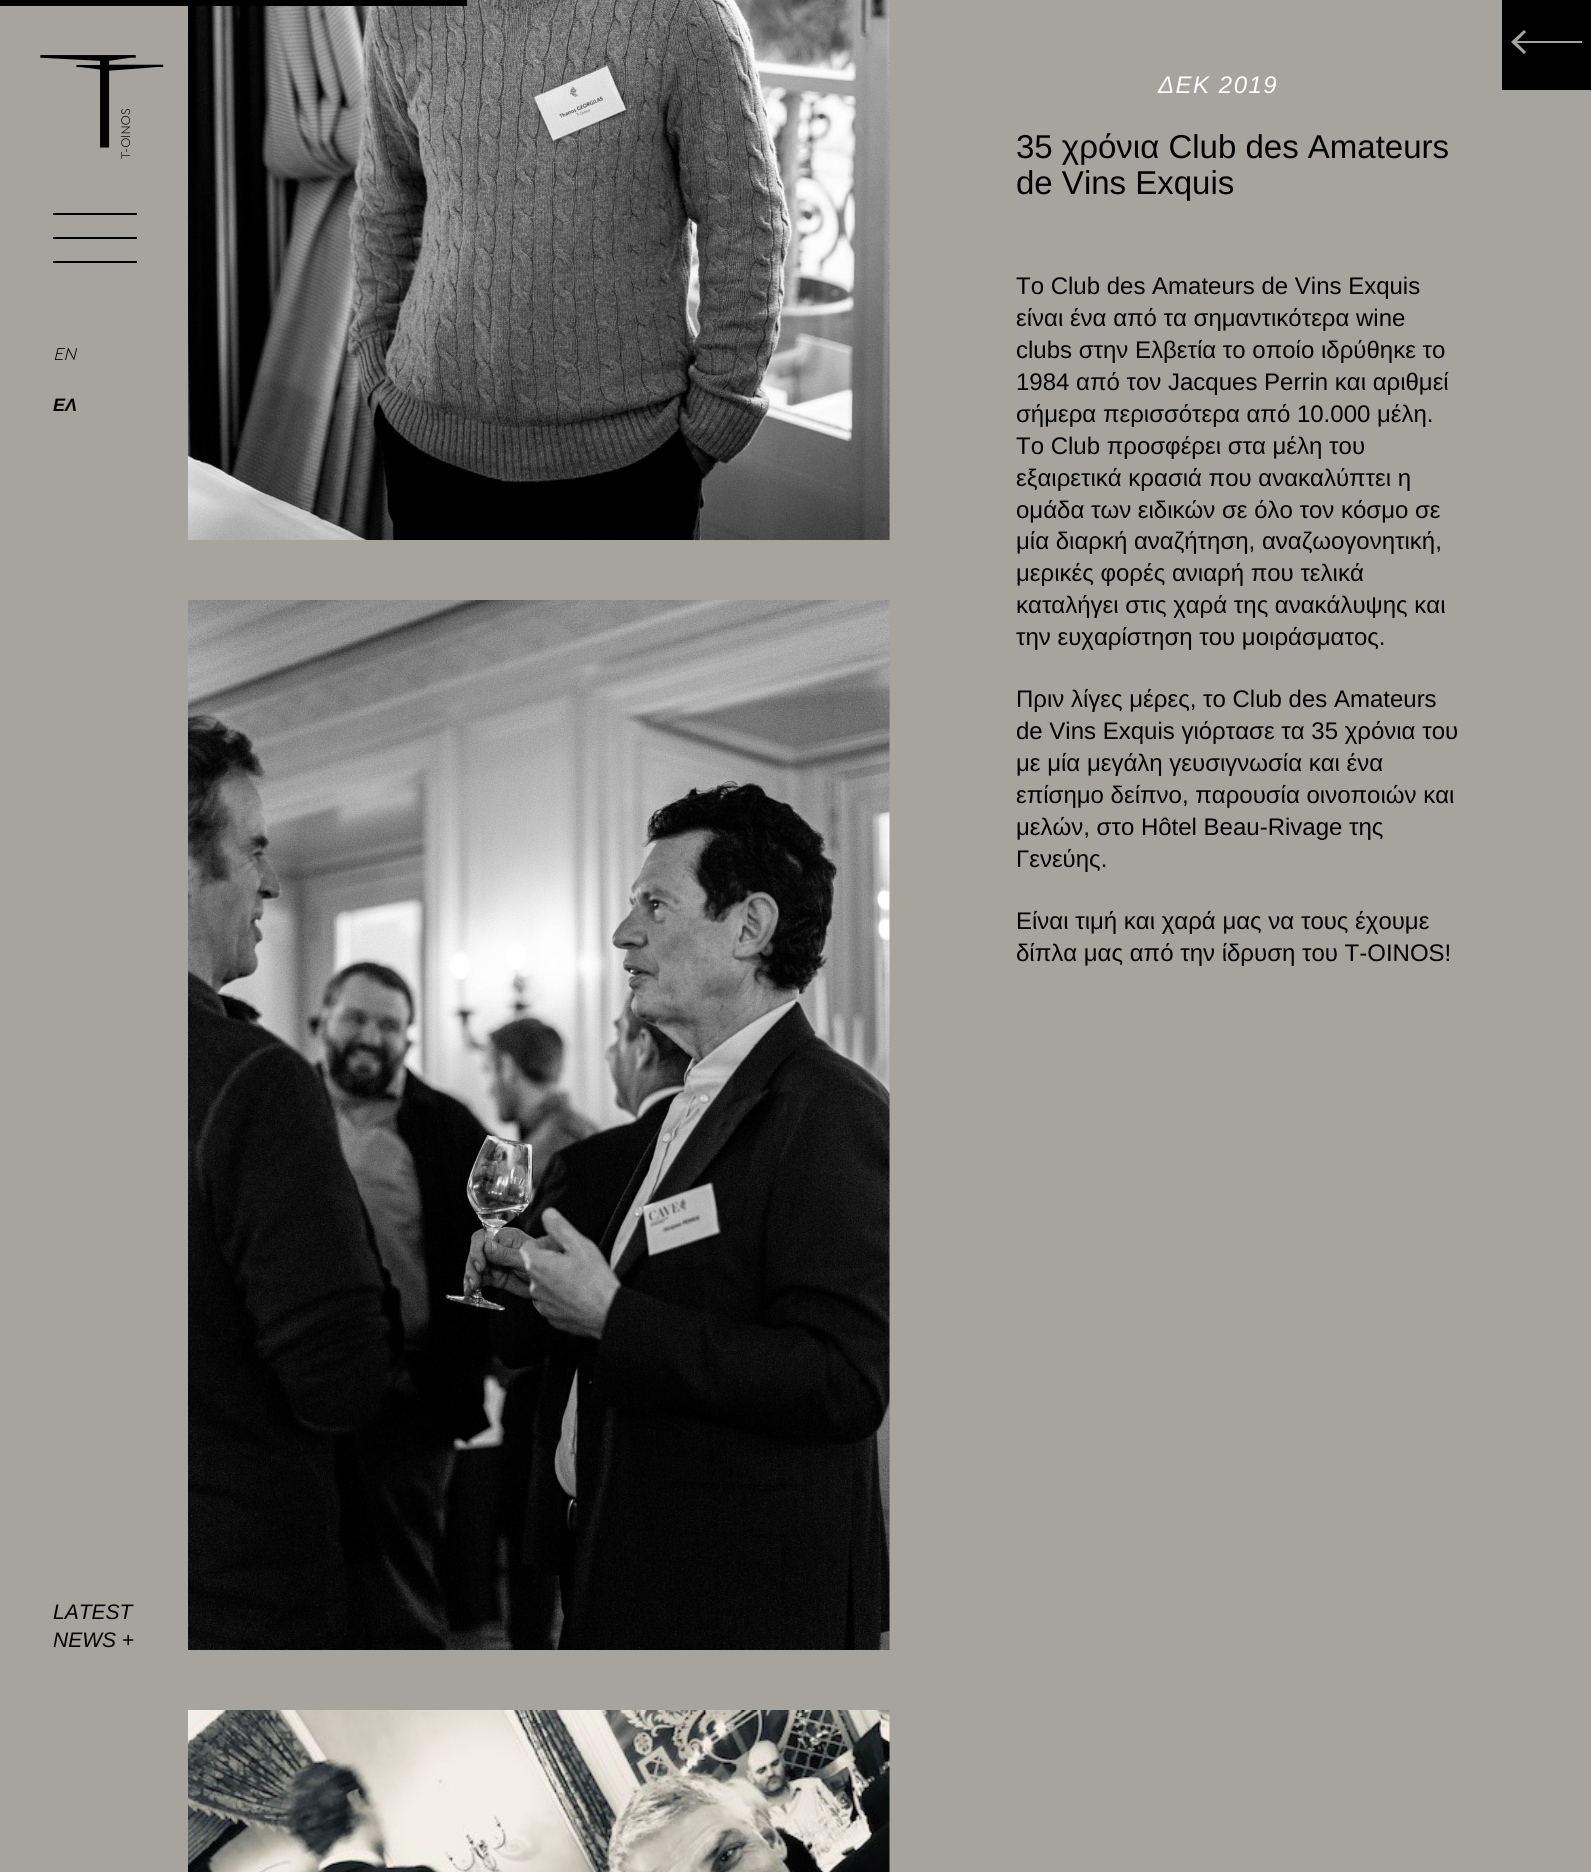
import math
import cairocffi as cairo

surface = cairo.ImageSurface(cairo.FORMAT_RGB24, 1591, 1872)
cr = cairo.Context(surface)
options = cairo.FontOptions()
options.set_hint_metrics(cairo.HINT_METRICS_OFF)
options.set_hint_style(cairo.HINT_STYLE_NONE)
cr.set_font_options(options)
cr.set_miter_limit(4)


def use_color(code):
    cr.set_source_rgb(*(v / 255 for v in bytes.fromhex(code[-6:])))


def spaced_text(x, y, s, letter, word):
    cr.move_to(x, y)
    for ch in s:
        cr.show_text(ch)
        cr.rel_move_to(letter + word * (ch == ' '), 0)


def picture(path, x, y, w, h):
    cr.save()
    cr.set_source_surface(cairo.ImageSurface.create_from_png(path), x, y)
    cr.rectangle(x, y, w, h)
    cr.fill()
    cr.restore()


use_color("#a7a39d")
cr.paint()
picture("img2.png", 188, 0, 702, 540)
use_color("#000000")
cr.rectangle(0, 0, 467, 6)
cr.fill()
cr.rectangle(1502, 0, 89, 90)
cr.fill()
use_color("#a7a39d")
cr.new_path()
cr.move_to(1582, 41)
cr.line_to(1517, 41)
cr.line_to(1526, 32)
cr.line_to(1524, 30)
cr.line_to(1511, 42)
cr.line_to(1524, 54)
cr.line_to(1526, 52)
cr.line_to(1517, 43)
cr.line_to(1582, 43)
cr.close_path()
cr.fill()
picture("img1.png", 40, 55, 124, 104)
use_color("#000000")
cr.rectangle(53, 213, 84, 2)
cr.fill()
cr.rectangle(53, 237, 84, 2)
cr.fill()
cr.rectangle(53, 261, 84, 2)
cr.fill()
cr.select_font_face("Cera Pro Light", cairo.FONT_SLANT_ITALIC)
cr.set_font_size(18)
cr.move_to(53, 360)
cr.show_text("EN")
cr.select_font_face("Liberation Sans", cairo.FONT_SLANT_ITALIC, cairo.FONT_WEIGHT_BOLD)
cr.move_to(53, 411)
cr.show_text("ΕΛ")
cr.select_font_face("Liberation Sans", cairo.FONT_SLANT_ITALIC)
cr.set_font_size(21)
cr.move_to(53, 1619)
cr.show_text("LATEST")
cr.move_to(53, 1647)
cr.show_text("NEWS +")
picture("img3.png", 188, 600, 702, 1050)
picture("img4.png", 188, 1710, 702, 162)
cr.set_font_size(24)
use_color("#ffffff")
spaced_text(1158, 93, "ΔΕΚ 2019", 1.5, 0)
cr.select_font_face("Liberation Sans")
cr.set_font_size(33)
use_color("#000000")
cr.move_to(1016, 158)
cr.show_text("35 χρόνια Club des Amateurs")
cr.move_to(1016, 194)
cr.show_text("de Vins Exquis")
cr.set_font_size(24)
cr.move_to(1016, 294)
cr.show_text("Το Club des Amateurs de Vins Exquis")
cr.move_to(1016, 326)
cr.show_text("είναι ένα από τα σημαντικότερα wine")
cr.move_to(1016, 358)
cr.show_text("clubs στην Ελβετία το οποίο ιδρύθηκε το")
cr.move_to(1016, 390)
cr.show_text("1984 από τον Jacques Perrin και αριθμεί")
cr.move_to(1016, 422)
cr.show_text("σήμερα περισσότερα από 10.000 μέλη.")
cr.move_to(1016, 454)
cr.show_text("Το Club προσφέρει στα μέλη του")
cr.move_to(1016, 486)
cr.show_text("εξαιρετικά κρασιά που ανακαλύπτει η")
cr.move_to(1016, 518)
cr.show_text("ομάδα των ειδικών σε όλο τον κόσμο σε")
cr.move_to(1016, 549)
cr.show_text("μία διαρκή αναζήτηση, αναζωογονητική,")
cr.move_to(1016, 581)
cr.show_text("μερικές φορές ανιαρή που τελικά")
cr.move_to(1016, 613)
cr.show_text("καταλήγει στις χαρά της ανακάλυψης και")
cr.move_to(1016, 645)
cr.show_text("την ευχαρίστηση του μοιράσματος.")
cr.move_to(1016, 707)
cr.show_text("Πριν λίγες μέρες, το Club des Amateurs")
cr.move_to(1016, 739)
cr.show_text("de Vins Exquis γιόρτασε τα 35 χρόνια του")
cr.move_to(1016, 771)
cr.show_text("με μία μεγάλη γευσιγνωσία και ένα")
cr.move_to(1016, 803)
cr.show_text("επίσημο δείπνο, παρουσία οινοποιών και")
cr.move_to(1016, 835)
cr.show_text("μελών, στο Hôtel Beau-Rivage της")
cr.move_to(1016, 867)
cr.show_text("Γενεύης.")
cr.move_to(1016, 929)
cr.show_text("Είναι τιμή και χαρά μας να τους έχουμε")
cr.move_to(1016, 961)
cr.show_text("δίπλα μας από την ίδρυση του T-OINOS!")
surface.write_to_png("result.png")
